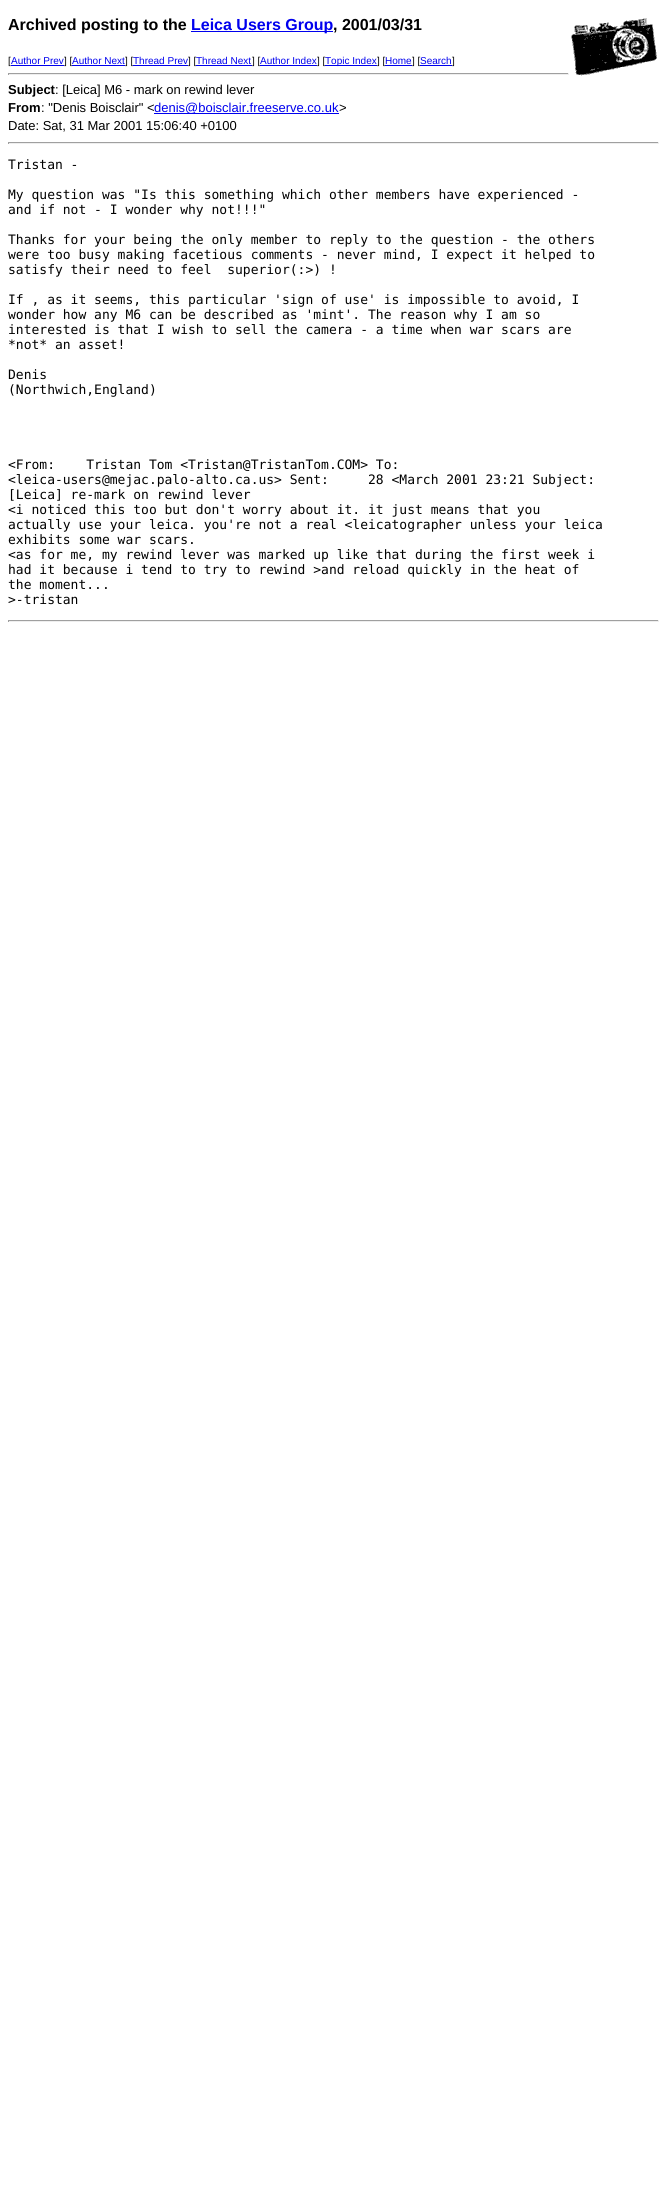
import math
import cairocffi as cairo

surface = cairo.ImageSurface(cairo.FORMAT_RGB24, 667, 2196)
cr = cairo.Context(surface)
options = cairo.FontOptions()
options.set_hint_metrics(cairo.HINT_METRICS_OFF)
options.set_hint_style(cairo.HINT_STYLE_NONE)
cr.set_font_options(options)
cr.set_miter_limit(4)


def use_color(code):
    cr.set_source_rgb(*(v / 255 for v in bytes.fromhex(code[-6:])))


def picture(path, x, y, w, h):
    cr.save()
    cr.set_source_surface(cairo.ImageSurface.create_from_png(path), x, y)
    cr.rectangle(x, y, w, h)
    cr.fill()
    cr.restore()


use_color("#ffffff")
cr.paint()
cr.select_font_face("Liberation Sans", cairo.FONT_SLANT_NORMAL, cairo.FONT_WEIGHT_BOLD)
cr.set_font_size(16)
use_color("#000000")
cr.move_to(8, 30)
cr.show_text("Archived posting to the")
use_color("#0000ee")
cr.rectangle(191, 31, 142, 1)
cr.fill()
cr.move_to(191, 30)
cr.show_text("Leica Users Group")
use_color("#000000")
cr.move_to(333, 30)
cr.show_text(", 2001/03/31")
picture("img1.png", 571, 18, 86, 58)
cr.select_font_face("Liberation Sans")
cr.set_font_size(10)
cr.move_to(8, 64)
cr.show_text("[")
use_color("#0000ee")
cr.move_to(11, 64)
cr.show_text("Author Prev")
cr.rectangle(11, 65, 53, 1)
cr.fill()
use_color("#000000")
cr.move_to(64, 64)
cr.show_text("] [")
use_color("#0000ee")
cr.move_to(72, 64)
cr.show_text("Author Next")
cr.rectangle(72, 65, 53, 1)
cr.fill()
use_color("#000000")
cr.move_to(125, 64)
cr.show_text("] [")
use_color("#0000ee")
cr.move_to(133, 64)
cr.show_text("Thread Prev")
cr.rectangle(133, 65, 55, 1)
cr.fill()
use_color("#000000")
cr.move_to(188, 64)
cr.show_text("] [")
use_color("#0000ee")
cr.move_to(196, 64)
cr.show_text("Thread Next")
cr.rectangle(196, 65, 56, 1)
cr.fill()
use_color("#000000")
cr.move_to(252, 64)
cr.show_text("] [")
use_color("#0000ee")
cr.move_to(260, 64)
cr.show_text("Author Index")
cr.rectangle(260, 65, 57, 1)
cr.fill()
use_color("#000000")
cr.move_to(317, 64)
cr.show_text("] [")
use_color("#0000ee")
cr.rectangle(325, 65, 52, 1)
cr.fill()
cr.move_to(325, 64)
cr.show_text("Topic Index")
use_color("#000000")
cr.move_to(377, 64)
cr.show_text("] [")
use_color("#0000ee")
cr.move_to(385, 64)
cr.show_text("Home")
cr.rectangle(385, 65, 27, 1)
cr.fill()
use_color("#000000")
cr.move_to(412, 64)
cr.show_text("] [")
use_color("#0000ee")
cr.move_to(420, 64)
cr.show_text("Search")
cr.rectangle(420, 65, 32, 1)
cr.fill()
use_color("#000000")
cr.move_to(452, 64)
cr.show_text("]")
use_color("#9f9f9f")
cr.rectangle(8, 73, 561, 1)
cr.fill()
use_color("#eeeeee")
cr.rectangle(568, 73, 1, 2)
cr.fill()
cr.rectangle(8, 74, 561, 1)
cr.fill()
use_color("#9f9f9f")
cr.rectangle(8, 73, 1, 2)
cr.fill()
cr.select_font_face("Liberation Sans", cairo.FONT_SLANT_NORMAL, cairo.FONT_WEIGHT_BOLD)
cr.set_font_size(13)
use_color("#000000")
cr.move_to(8, 94)
cr.show_text("Subject")
cr.select_font_face("Liberation Sans")
cr.move_to(55, 94)
cr.show_text(": [Leica] M6 - mark on rewind lever")
cr.select_font_face("Liberation Sans", cairo.FONT_SLANT_NORMAL, cairo.FONT_WEIGHT_BOLD)
cr.move_to(8, 112)
cr.show_text("From")
cr.select_font_face("Liberation Sans")
cr.move_to(41, 112)
cr.show_text(": \"Denis Boisclair\" <")
use_color("#0000ee")
cr.rectangle(154, 113, 185, 1)
cr.fill()
cr.move_to(154, 112)
cr.show_text("denis@boisclair.freeserve.co.uk")
use_color("#000000")
cr.move_to(339, 112)
cr.show_text(">")
cr.move_to(8, 130)
cr.show_text("Date: Sat, 31 Mar 2001 15:06:40 +0100")
use_color("#9f9f9f")
cr.rectangle(8, 142, 651, 1)
cr.fill()
use_color("#eeeeee")
cr.rectangle(658, 142, 1, 2)
cr.fill()
cr.rectangle(8, 143, 651, 1)
cr.fill()
use_color("#9f9f9f")
cr.rectangle(8, 142, 1, 2)
cr.fill()
cr.select_font_face("DejaVu Sans Mono")
use_color("#000000")
cr.move_to(8, 169)
cr.show_text("Tristan -")
cr.move_to(8, 199)
cr.show_text("My question was \"Is this something which other members have experienced -")
cr.move_to(8, 214)
cr.show_text("and if not - I wonder why not!!!\"")
cr.move_to(8, 244)
cr.show_text("Thanks for your being the only member to reply to the question - the others")
cr.move_to(8, 259)
cr.show_text("were too busy making facetious comments - never mind, I expect it helped to")
cr.move_to(8, 274)
cr.show_text("satisfy their need to feel  superior(:>) !")
cr.move_to(8, 304)
cr.show_text("If , as it seems, this particular 'sign of use' is impossible to avoid, I")
cr.move_to(8, 319)
cr.show_text("wonder how any M6 can be described as 'mint'. The reason why I am so")
cr.move_to(8, 334)
cr.show_text("interested is that I wish to sell the camera - a time when war scars are")
cr.move_to(8, 349)
cr.show_text("*not* an asset!")
cr.move_to(8, 379)
cr.show_text("Denis")
cr.move_to(8, 394)
cr.show_text("(Northwich,England)")
cr.move_to(8, 469)
cr.show_text("<From:    Tristan Tom <Tristan@TristanTom.COM> To:")
cr.move_to(8, 484)
cr.show_text("<leica-users@mejac.palo-alto.ca.us> Sent:     28 <March 2001 23:21 Subject:")
cr.move_to(8, 499)
cr.show_text("[Leica] re-mark on rewind lever")
cr.move_to(8, 514)
cr.show_text("<i noticed this too but don't worry about it. it just means that you")
cr.move_to(8, 529)
cr.show_text("actually use your leica. you're not a real <leicatographer unless your leica")
cr.move_to(8, 544)
cr.show_text("exhibits some war scars.")
cr.move_to(8, 559)
cr.show_text("<as for me, my rewind lever was marked up like that during the first week i")
cr.move_to(8, 574)
cr.show_text("had it because i tend to try to rewind >and reload quickly in the heat of")
cr.move_to(8, 589)
cr.show_text("the moment...")
cr.move_to(8, 604)
cr.show_text(">-tristan")
use_color("#9f9f9f")
cr.rectangle(8, 620, 651, 1)
cr.fill()
use_color("#eeeeee")
cr.rectangle(658, 620, 1, 2)
cr.fill()
cr.rectangle(8, 621, 651, 1)
cr.fill()
use_color("#9f9f9f")
cr.rectangle(8, 620, 1, 2)
cr.fill()
surface.write_to_png("result.png")
